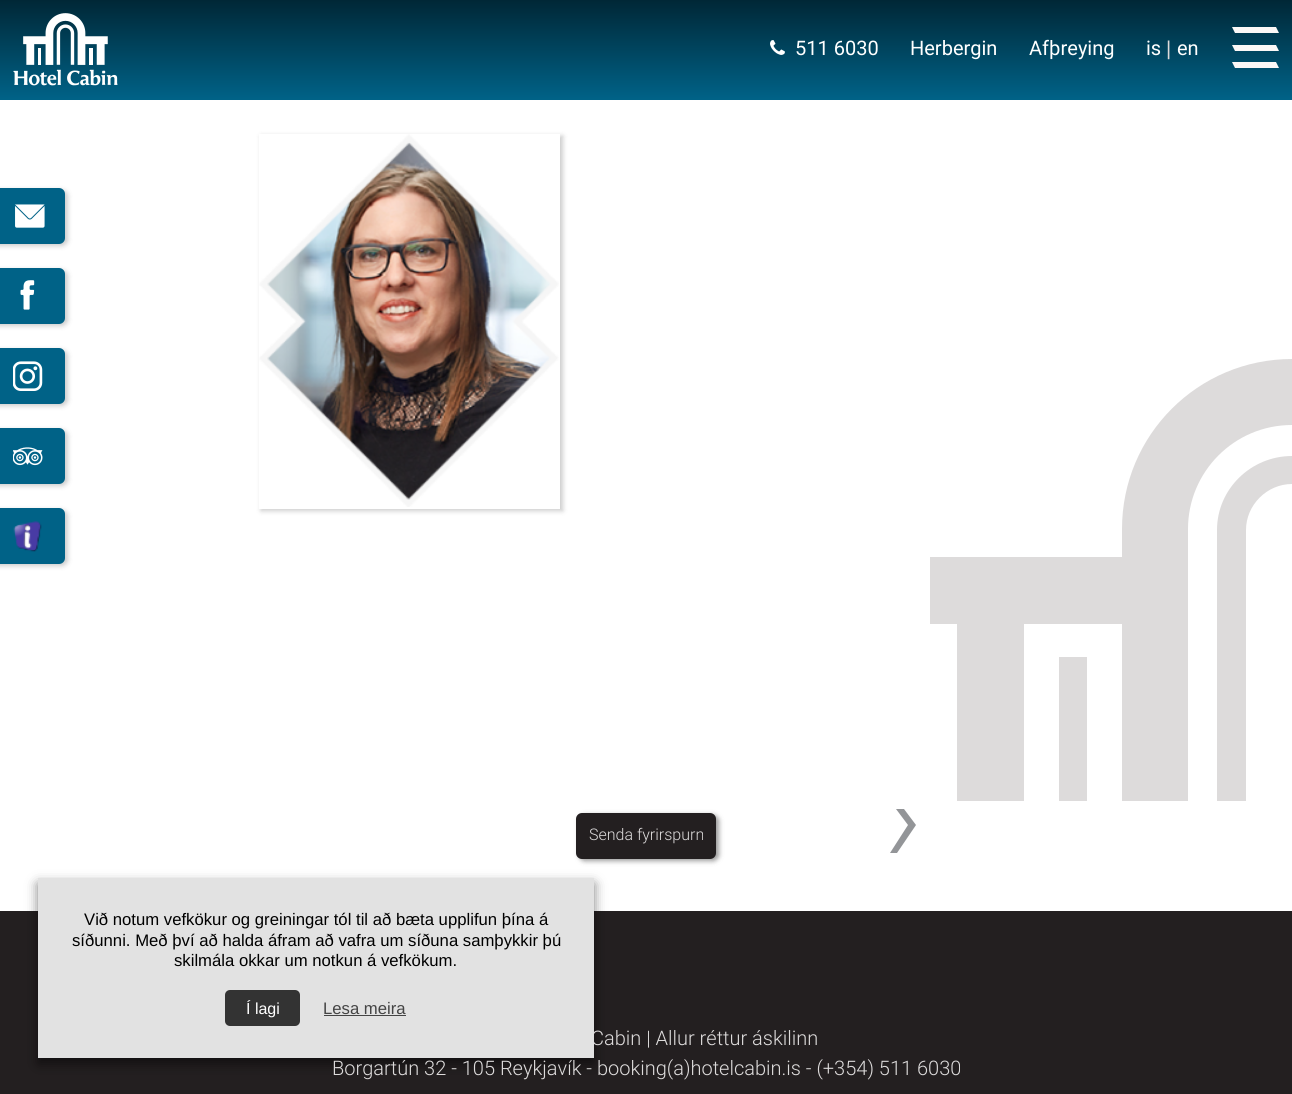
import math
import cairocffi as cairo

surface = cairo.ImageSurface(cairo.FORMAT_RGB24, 1292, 1094)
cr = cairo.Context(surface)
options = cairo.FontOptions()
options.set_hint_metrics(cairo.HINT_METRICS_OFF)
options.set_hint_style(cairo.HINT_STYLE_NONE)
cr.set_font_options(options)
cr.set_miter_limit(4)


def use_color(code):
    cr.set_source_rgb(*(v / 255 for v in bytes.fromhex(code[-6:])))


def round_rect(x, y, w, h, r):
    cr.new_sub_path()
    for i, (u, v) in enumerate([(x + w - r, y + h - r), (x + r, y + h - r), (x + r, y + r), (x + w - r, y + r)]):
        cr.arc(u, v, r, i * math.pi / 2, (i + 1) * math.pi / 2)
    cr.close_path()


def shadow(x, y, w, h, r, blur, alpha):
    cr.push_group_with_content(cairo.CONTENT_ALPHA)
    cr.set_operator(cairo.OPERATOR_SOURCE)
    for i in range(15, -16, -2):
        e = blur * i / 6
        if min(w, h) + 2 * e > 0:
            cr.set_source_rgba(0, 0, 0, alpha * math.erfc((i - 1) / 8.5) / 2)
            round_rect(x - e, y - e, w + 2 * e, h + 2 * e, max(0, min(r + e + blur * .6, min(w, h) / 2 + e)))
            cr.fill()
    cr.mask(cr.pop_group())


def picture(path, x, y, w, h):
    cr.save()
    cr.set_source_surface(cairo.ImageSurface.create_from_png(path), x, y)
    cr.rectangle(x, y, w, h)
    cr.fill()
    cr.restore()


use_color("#ffffff")
cr.paint()
gradient = cairo.LinearGradient(646, 0, 646, 99)
gradient.add_color_stop_rgba(0, 0, 0.153, 0.212, 1)
gradient.add_color_stop_rgba(1, 0, 0.384, 0.529, 1)
cr.set_source(gradient)
cr.rectangle(0, 0, 1292, 99)
cr.fill()
picture("img1.png", 13, 13, 105, 73)
picture("img2.png", 770, 40, 15, 15)
cr.select_font_face("Roboto")
cr.set_font_size(20)
use_color("#ffffff")
cr.move_to(795, 55)
cr.show_text("511 6030")
cr.move_to(910, 55)
cr.show_text("Herbergin")
cr.move_to(1029, 55)
cr.show_text("Afþreying")
cr.move_to(1146, 55)
cr.show_text("is")
cr.select_font_face("Liberation Sans")
use_color("#dddbdb")
cr.move_to(1166, 55)
cr.show_text("|")
cr.select_font_face("Roboto")
use_color("#ffffff")
cr.move_to(1177, 55)
cr.show_text("en")
use_color("#fbf8f7")
cr.set_fill_rule(cairo.FILL_RULE_EVEN_ODD)
cr.new_path()
cr.move_to(1276, 27)
cr.line_to(1232, 27)
cr.line_to(1235, 33)
cr.line_to(1279, 33)
cr.close_path()
cr.move_to(1276, 45)
cr.line_to(1232, 45)
cr.line_to(1235, 51)
cr.line_to(1279, 51)
cr.close_path()
cr.move_to(1276, 62)
cr.line_to(1232, 62)
cr.line_to(1235, 68)
cr.line_to(1279, 68)
cr.close_path()
cr.fill()
use_color("#000000")
shadow(-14, 190, 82, 56, 6, 2.5, 0.2)
use_color("#006287")
round_rect(-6, 188, 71, 56, 6)
cr.fill()
picture("img3.png", 15, 204, 30, 24)
use_color("#000000")
shadow(-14, 270, 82, 56, 6, 2.5, 0.2)
use_color("#006287")
round_rect(-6, 268, 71, 56, 6)
cr.fill()
picture("img4.png", 20, 280, 15, 30)
use_color("#000000")
shadow(-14, 350, 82, 56, 6, 2.5, 0.2)
use_color("#006287")
round_rect(-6, 348, 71, 56, 6)
cr.fill()
picture("img5.png", 13, 361, 30, 30)
use_color("#000000")
shadow(-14, 430, 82, 56, 6, 2.5, 0.2)
use_color("#006287")
round_rect(-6, 428, 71, 56, 6)
cr.fill()
picture("img6.png", 13, 447, 30, 19)
use_color("#000000")
shadow(-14, 510, 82, 56, 6, 2.5, 0.2)
use_color("#006287")
round_rect(-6, 508, 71, 56, 6)
cr.fill()
picture("img7.png", 13, 521, 29, 31)
cr.rectangle(0, 99, 1292, 1)
cr.fill()
use_color("#dddbdb")
cr.rectangle(1059, 657, 28, 144)
cr.fill()
cr.set_fill_rule(cairo.FILL_RULE_WINDING)
cr.new_path()
cr.move_to(1292, 456)
cr.line_to(1292, 484)
cr.curve_to(1267, 484, 1246, 505, 1246, 530)
cr.line_to(1246, 801)
cr.line_to(1217, 801)
cr.line_to(1217, 530)
cr.curve_to(1217, 489, 1251, 456, 1292, 456)
cr.close_path()
cr.fill()
cr.save()
cr.rectangle(930, 359, 362, 442)
cr.clip()
cr.new_path()
cr.move_to(1292, 425)
cr.line_to(1292, 359)
cr.curve_to(1198, 359, 1122, 435, 1122, 529)
cr.line_to(1122, 557)
cr.line_to(930, 557)
cr.line_to(930, 624)
cr.line_to(957, 624)
cr.line_to(957, 801)
cr.line_to(1024, 801)
cr.line_to(1024, 624)
cr.line_to(1122, 624)
cr.line_to(1122, 802)
cr.line_to(1188, 802)
cr.line_to(1188, 529)
cr.curve_to(1188, 472, 1234, 425, 1292, 425)
cr.close_path()
cr.fill()
cr.restore()
cr.save()
cr.set_fill_rule(cairo.FILL_RULE_EVEN_ODD)
cr.new_path()
cr.move_to(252, 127)
cr.line_to(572, 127)
cr.line_to(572, 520)
cr.line_to(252, 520)
cr.close_path()
cr.move_to(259, 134)
cr.line_to(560, 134)
cr.line_to(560, 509)
cr.line_to(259, 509)
cr.close_path()
cr.clip()
use_color("#000000")
shadow(261, 136, 302, 375, 0, 2.5, 0.2)
cr.restore()
picture("img8.png", 259, 134, 300, 373)
use_color("#000000")
shadow(579, 815, 140, 46, 6, 2.5, 0.4)
use_color("#231f20")
round_rect(576, 813, 140, 46, 6)
cr.fill()
cr.select_font_face("Roboto Light")
cr.set_font_size(16)
use_color("#dddbdb")
cr.move_to(589, 840)
cr.show_text("Senda fyrirspurn")
use_color("#939598")
cr.set_fill_rule(cairo.FILL_RULE_EVEN_ODD)
cr.new_path()
cr.move_to(896, 809)
cr.line_to(904, 809)
cr.line_to(916, 825)
cr.line_to(897, 853)
cr.line_to(890, 853)
cr.line_to(908, 825)
cr.close_path()
cr.fill()
use_color("#231f20")
cr.rectangle(0, 911, 1292, 183)
cr.fill()
use_color("#000000")
shadow(38, 884, 556, 180, 0, 6, 0.5)
cr.set_font_size(20)
use_color("#dddbdb")
cr.move_to(591, 1045)
cr.show_text("Cabin | Allur réttur áskilinn")
use_color("#e2e2e2")
cr.rectangle(38, 878, 556, 180)
cr.fill()
cr.select_font_face("Liberation Sans")
cr.set_font_size(16.7)
use_color("#000000")
cr.move_to(84, 925)
cr.show_text("Við notum vefkökur og greiningar tól til að bæta upplifun þína á")
cr.move_to(72, 946)
cr.show_text("síðunni. Með því að halda áfram að vafra um síðuna samþykkir þú")
cr.move_to(174, 966)
cr.show_text("skilmála okkar um notkun á vefkökum.")
use_color("#333333")
round_rect(225, 990, 75, 36, 5)
cr.fill()
cr.set_font_size(16)
use_color("#ffffff")
cr.move_to(246, 1014)
cr.show_text("Í lagi")
cr.set_font_size(16.7)
use_color("#444444")
cr.move_to(323, 1014)
cr.show_text("Lesa meira")
cr.rectangle(324, 1015, 82, 1)
cr.fill()
cr.select_font_face("Roboto Light")
cr.set_font_size(20)
use_color("#dddbdb")
cr.move_to(332, 1075)
cr.show_text("Borgartún 32 - 105 Reykjavík - booking(a)hotelcabin.is - (+354) 511 6030")
surface.write_to_png("result.png")
